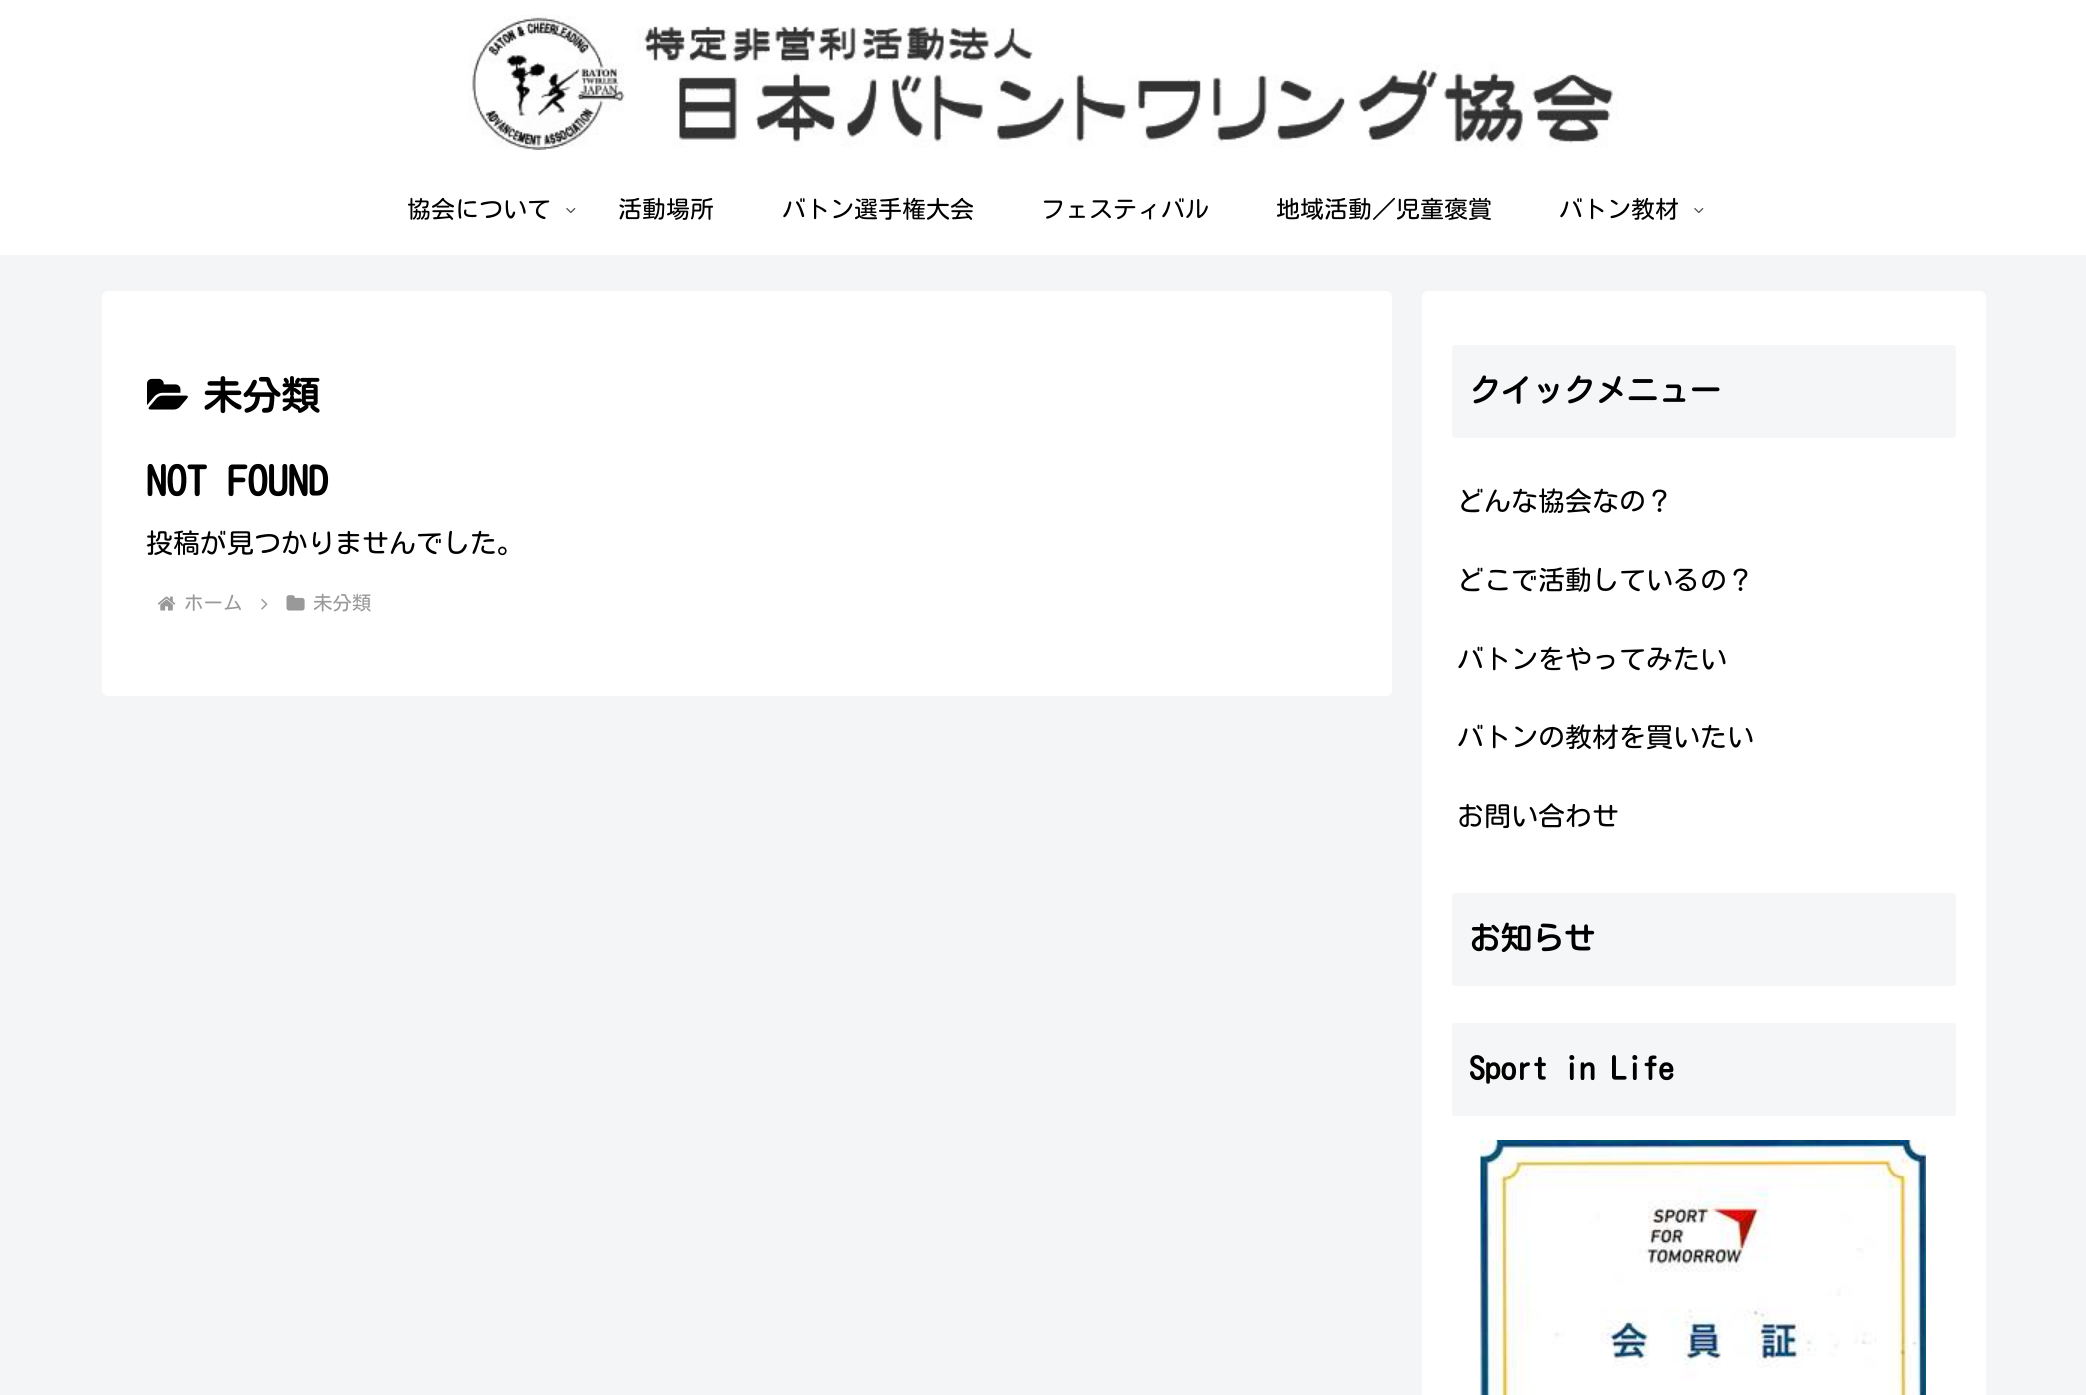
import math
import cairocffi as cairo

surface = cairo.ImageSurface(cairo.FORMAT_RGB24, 2086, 1395)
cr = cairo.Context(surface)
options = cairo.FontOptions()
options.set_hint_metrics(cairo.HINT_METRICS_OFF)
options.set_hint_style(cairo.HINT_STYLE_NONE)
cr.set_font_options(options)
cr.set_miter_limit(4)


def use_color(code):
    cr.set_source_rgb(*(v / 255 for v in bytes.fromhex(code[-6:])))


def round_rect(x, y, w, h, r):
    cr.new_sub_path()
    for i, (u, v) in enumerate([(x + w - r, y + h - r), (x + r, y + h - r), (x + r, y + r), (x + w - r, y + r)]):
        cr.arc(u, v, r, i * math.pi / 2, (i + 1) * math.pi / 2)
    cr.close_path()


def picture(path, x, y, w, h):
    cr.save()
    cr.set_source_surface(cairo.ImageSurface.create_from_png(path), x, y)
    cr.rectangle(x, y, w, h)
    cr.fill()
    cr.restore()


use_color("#f4f5f7")
cr.paint()
use_color("#ffffff")
cr.rectangle(0, 0, 2086, 255)
cr.fill()
picture("img1.png", 468, 15, 1151, 135)
cr.select_font_face("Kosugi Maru")
cr.set_font_size(24)
use_color("#000000")
cr.move_to(407, 218)
cr.show_text("協会について")
picture("img2.png", 566, 207, 10, 7)
cr.move_to(618, 218)
cr.show_text("活動場所")
cr.move_to(782, 218)
cr.show_text("バトン選手権大会")
cr.move_to(1041, 218)
cr.show_text("フェスティバル")
cr.move_to(1276, 218)
cr.show_text("地域活動／児童褒賞")
cr.move_to(1559, 218)
cr.show_text("バトン教材")
picture("img2.png", 1694, 207, 10, 7)
use_color("#ffffff")
round_rect(102, 291, 1290, 405, 6)
cr.fill()
picture("img3.png", 147, 378, 41, 32)
cr.select_font_face("Kosugi Maru", cairo.FONT_SLANT_NORMAL, cairo.FONT_WEIGHT_BOLD)
cr.set_font_size(39)
use_color("#000000")
cr.move_to(203, 410)
cr.show_text("未分類")
cr.set_font_size(40.5)
cr.move_to(146, 496)
cr.show_text("NOT FOUND")
cr.select_font_face("Kosugi Maru")
cr.set_font_size(27)
cr.move_to(146, 553)
cr.show_text("投稿が見つかりませんでした。")
picture("img4.png", 157, 596, 19, 15)
cr.set_font_size(19.5)
use_color("#999999")
cr.move_to(184, 610)
cr.show_text("ホーム")
picture("img5.png", 261, 598, 7, 12)
picture("img6.png", 286, 595, 19, 16)
cr.move_to(313, 610)
cr.show_text("未分類")
use_color("#ffffff")
round_rect(1422, 291, 564, 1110, 6)
cr.fill()
use_color("#f5f6f7")
round_rect(1452, 345, 504, 93, 3)
cr.fill()
cr.select_font_face("Kosugi Maru", cairo.FONT_SLANT_NORMAL, cairo.FONT_WEIGHT_BOLD)
cr.set_font_size(31.5)
use_color("#000000")
cr.move_to(1469, 402)
cr.show_text("クイックメニュー")
cr.select_font_face("Kosugi Maru")
cr.set_font_size(27)
cr.move_to(1457, 511)
cr.show_text("どんな協会なの？")
cr.move_to(1457, 590)
cr.show_text("どこで活動しているの？")
cr.move_to(1457, 669)
cr.show_text("バトンをやってみたい")
cr.move_to(1457, 747)
cr.show_text("バトンの教材を買いたい")
cr.move_to(1457, 826)
cr.show_text("お問い合わせ")
use_color("#f5f6f7")
round_rect(1452, 893, 504, 93, 3)
cr.fill()
cr.select_font_face("Kosugi Maru", cairo.FONT_SLANT_NORMAL, cairo.FONT_WEIGHT_BOLD)
cr.set_font_size(31.5)
use_color("#000000")
cr.move_to(1469, 950)
cr.show_text("お知らせ")
use_color("#f5f6f7")
round_rect(1452, 1023, 504, 93, 3)
cr.fill()
use_color("#000000")
cr.move_to(1469, 1080)
cr.show_text("Sport in Life")
picture("img7.png", 1480, 1140, 446, 255)
surface.write_to_png("result.png")
